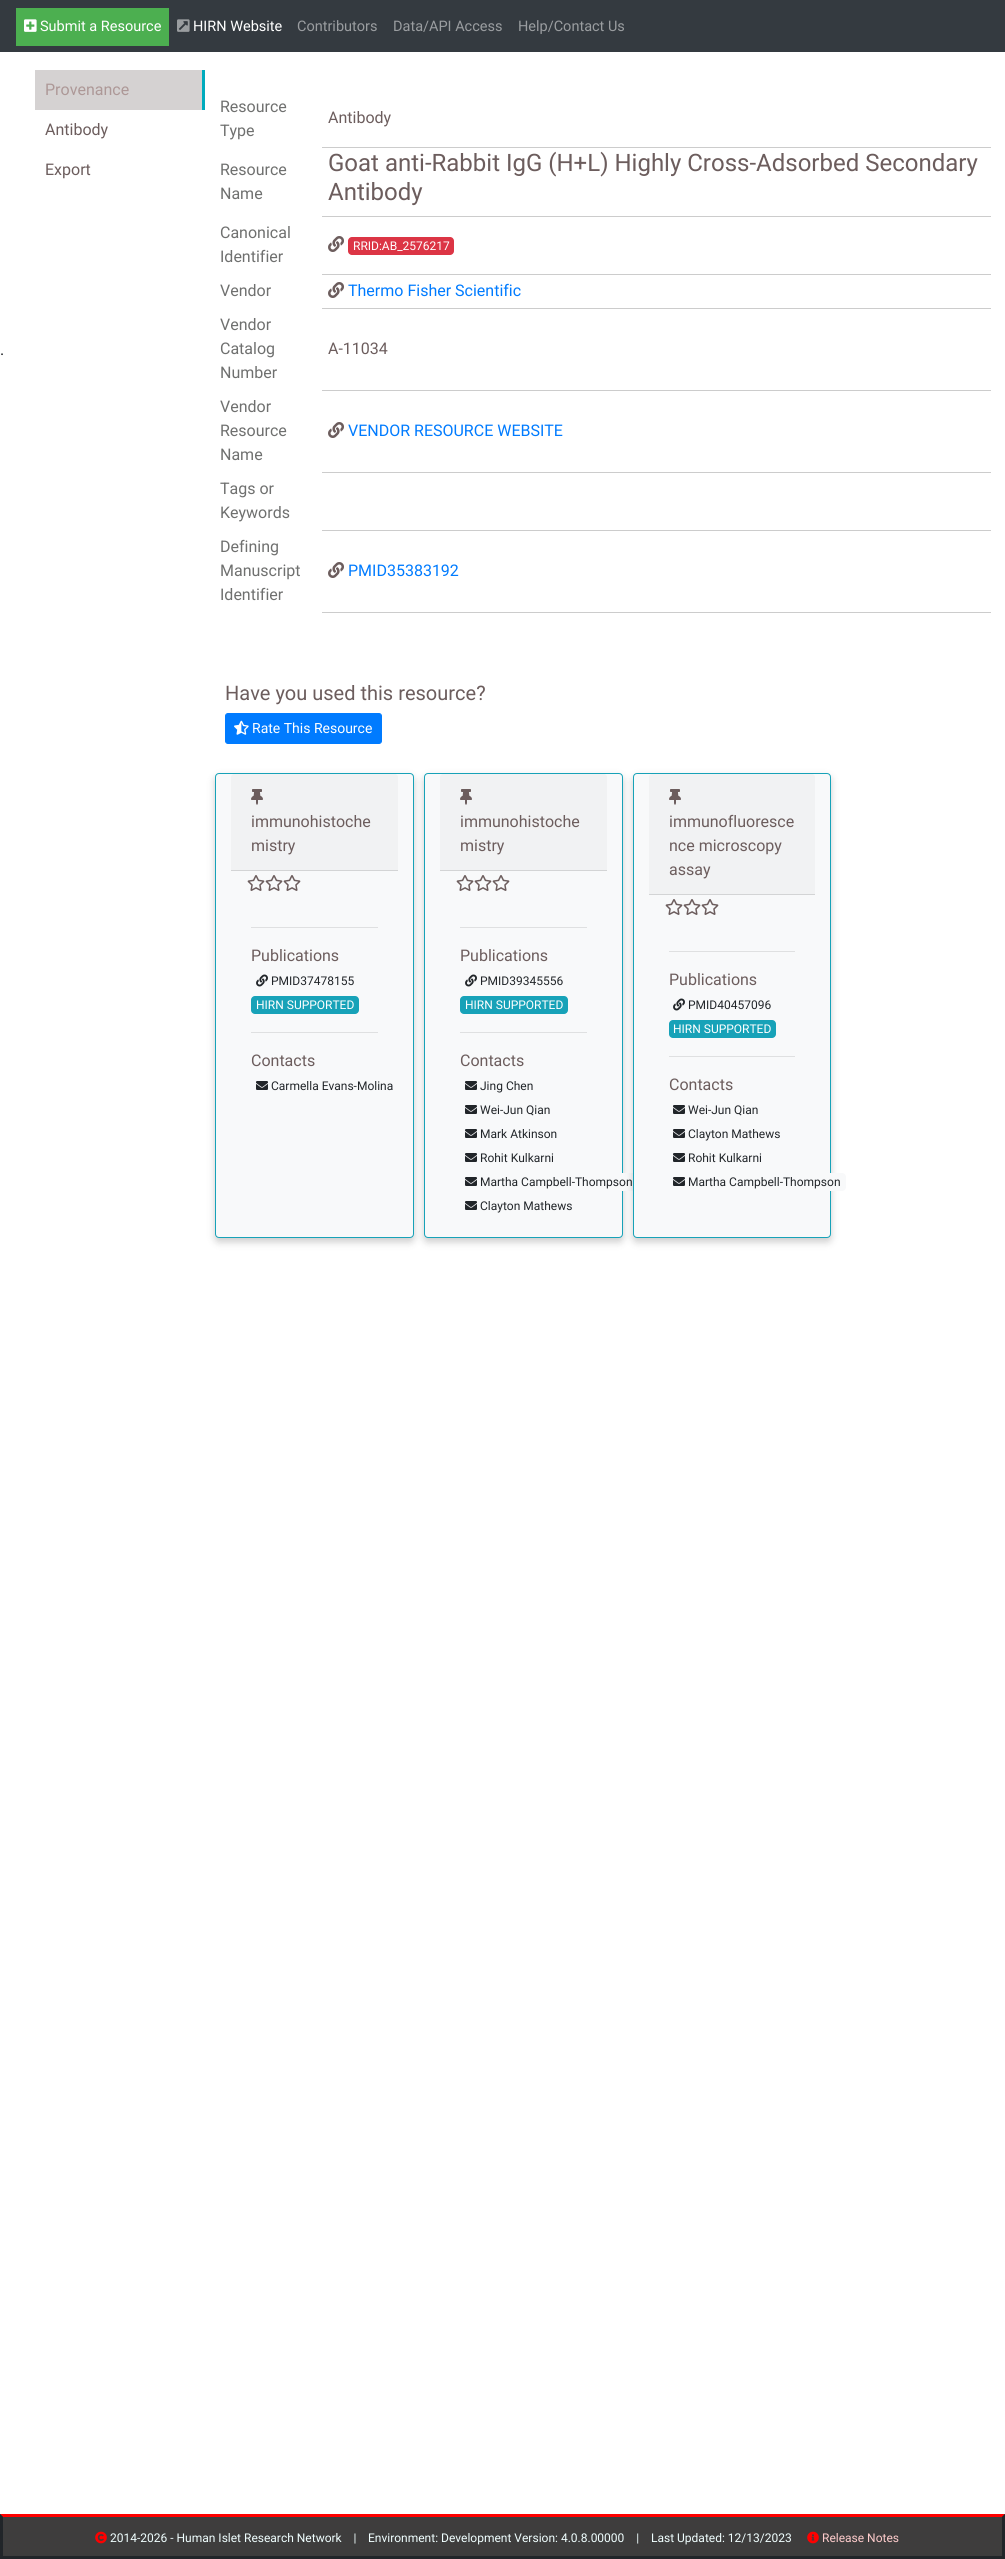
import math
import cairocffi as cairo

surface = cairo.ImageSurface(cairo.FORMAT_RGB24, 1005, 2559)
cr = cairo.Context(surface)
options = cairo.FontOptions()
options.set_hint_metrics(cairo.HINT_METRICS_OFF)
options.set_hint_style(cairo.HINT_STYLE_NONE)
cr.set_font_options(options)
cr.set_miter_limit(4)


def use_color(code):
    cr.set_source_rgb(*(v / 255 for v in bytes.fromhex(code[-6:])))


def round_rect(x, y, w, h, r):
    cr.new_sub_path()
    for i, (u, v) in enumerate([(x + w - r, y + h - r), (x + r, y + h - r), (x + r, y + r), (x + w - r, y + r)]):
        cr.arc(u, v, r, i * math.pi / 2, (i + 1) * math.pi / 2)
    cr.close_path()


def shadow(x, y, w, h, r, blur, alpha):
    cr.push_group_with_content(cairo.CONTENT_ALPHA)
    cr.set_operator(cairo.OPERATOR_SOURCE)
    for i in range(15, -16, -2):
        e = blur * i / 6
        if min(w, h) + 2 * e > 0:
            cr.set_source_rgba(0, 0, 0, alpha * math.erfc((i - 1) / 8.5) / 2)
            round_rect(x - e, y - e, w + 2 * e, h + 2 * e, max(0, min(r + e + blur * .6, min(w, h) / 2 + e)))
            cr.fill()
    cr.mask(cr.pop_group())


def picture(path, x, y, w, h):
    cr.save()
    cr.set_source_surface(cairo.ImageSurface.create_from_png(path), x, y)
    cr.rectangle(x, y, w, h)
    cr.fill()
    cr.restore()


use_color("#ffffff")
cr.paint()
use_color("#343a40")
cr.rectangle(0, 0, 1005, 52)
cr.fill()
use_color("#4caf50")
cr.rectangle(16, 8, 153, 38)
cr.fill()
picture("img1.png", 24, 19, 13, 13)
cr.select_font_face("Roboto")
cr.set_font_size(14.5)
use_color("#ffffff")
cr.move_to(40, 31)
cr.show_text("Submit a Resource")
picture("img2.png", 177, 19, 13, 13)
cr.move_to(193, 31)
cr.show_text("HIRN Website")
use_color("#9a9da0")
cr.move_to(297, 31)
cr.show_text("Contributors")
cr.move_to(393, 31)
cr.show_text("Data/API Access")
cr.move_to(518, 31)
cr.show_text("Help/Contact Us")
cr.set_font_size(16)
use_color("#212529")
cr.move_to(0, 355)
cr.show_text(".")
use_color("#d5d2d2")
cr.rectangle(35, 70, 167, 40)
cr.fill()
use_color("#00abbd")
cr.rectangle(202, 70, 3, 40)
cr.fill()
use_color("#ad9897")
cr.move_to(45, 95)
cr.show_text("Provenance")
use_color("#6c5d5d")
cr.move_to(45, 135)
cr.show_text("Antibody")
cr.move_to(45, 175)
cr.show_text("Export")
use_color("#6f706f")
cr.move_to(220, 112)
cr.show_text("Resource")
cr.move_to(220, 136)
cr.show_text("Type")
use_color("#cccccc")
cr.rectangle(322, 147, 669, 1)
cr.fill()
use_color("#6c5d5d")
cr.move_to(328, 123)
cr.show_text("Antibody")
use_color("#6f706f")
cr.move_to(220, 175)
cr.show_text("Resource")
cr.move_to(220, 199)
cr.show_text("Name")
use_color("#cccccc")
cr.rectangle(322, 216, 669, 1)
cr.fill()
cr.set_font_size(24)
use_color("#6c5d5d")
cr.move_to(328, 171)
cr.show_text("Goat anti-Rabbit IgG (H+L) Highly Cross-Adsorbed Secondary")
cr.move_to(328, 200)
cr.show_text("Antibody")
cr.set_font_size(16)
use_color("#6f706f")
cr.move_to(220, 238)
cr.show_text("Canonical")
cr.move_to(220, 262)
cr.show_text("Identifier")
use_color("#cccccc")
cr.rectangle(322, 274, 669, 1)
cr.fill()
picture("img3.png", 328, 236, 16, 16)
use_color("#dc3545")
round_rect(348, 237, 106, 18, 4)
cr.fill()
cr.set_font_size(12)
use_color("#ffffff")
cr.move_to(353, 250)
cr.show_text("RRID:AB_2576217")
cr.set_font_size(16)
use_color("#6f706f")
cr.move_to(220, 296)
cr.show_text("Vendor")
use_color("#cccccc")
cr.rectangle(322, 308, 669, 1)
cr.fill()
picture("img3.png", 328, 282, 16, 16)
use_color("#007bff")
cr.move_to(348, 296)
cr.show_text("Thermo Fisher Scientific")
use_color("#6f706f")
cr.move_to(220, 330)
cr.show_text("Vendor")
cr.move_to(220, 354)
cr.show_text("Catalog")
cr.move_to(220, 378)
cr.show_text("Number")
use_color("#cccccc")
cr.rectangle(322, 390, 669, 1)
cr.fill()
use_color("#6c5d5d")
cr.move_to(328, 354)
cr.show_text("A-11034")
use_color("#6f706f")
cr.move_to(220, 412)
cr.show_text("Vendor")
cr.move_to(220, 436)
cr.show_text("Resource")
cr.move_to(220, 460)
cr.show_text("Name")
use_color("#cccccc")
cr.rectangle(322, 472, 669, 1)
cr.fill()
picture("img3.png", 328, 422, 16, 16)
use_color("#007bff")
cr.move_to(348, 436)
cr.show_text("VENDOR RESOURCE WEBSITE")
use_color("#6f706f")
cr.move_to(220, 494)
cr.show_text("Tags or")
cr.move_to(220, 518)
cr.show_text("Keywords")
use_color("#cccccc")
cr.rectangle(322, 530, 669, 1)
cr.fill()
use_color("#6f706f")
cr.move_to(220, 552)
cr.show_text("Defining")
cr.move_to(220, 576)
cr.show_text("Manuscript")
cr.move_to(220, 600)
cr.show_text("Identifier")
use_color("#cccccc")
cr.rectangle(322, 612, 669, 1)
cr.fill()
picture("img3.png", 328, 562, 16, 16)
use_color("#007bff")
cr.move_to(348, 576)
cr.show_text("PMID35383192")
cr.set_font_size(20)
use_color("#6c5d5d")
cr.move_to(225, 700)
cr.show_text("Have you used this resource?")
use_color("#007bff")
round_rect(225.5, 713.5, 156, 30, 2.5)
cr.fill_preserve()
cr.set_line_width(1)
cr.stroke()
picture("img4.png", 234, 720, 15, 15)
cr.set_font_size(14)
use_color("#ffffff")
cr.move_to(252, 733)
cr.show_text("Rate This Resource")
use_color("#000000")
shadow(215, 777, 199, 465, 4, 4, 0.2)
use_color("#f8f9fa")
round_rect(215.5, 773.5, 198, 464, 3.5)
cr.fill_preserve()
use_color("#17a2b8")
cr.stroke()
use_color("#f1f2f3")
cr.new_path()
cr.move_to(234, 774)
cr.line_to(395, 774)
cr.curve_to(396.5, 774, 398, 775.5, 398, 777)
cr.line_to(398, 871)
cr.line_to(231, 871)
cr.line_to(231, 777)
cr.curve_to(231, 775.5, 232.5, 774, 234, 774)
cr.close_path()
cr.fill()
use_color("#d3d4d5")
cr.rectangle(231, 870, 167, 1)
cr.fill()
picture("img5.png", 251, 789, 12, 16)
cr.set_font_size(16)
use_color("#6c5d5d")
cr.move_to(251, 827)
cr.show_text("immunohistoche")
cr.move_to(251, 851)
cr.show_text("mistry")
picture("img6.png", 247, 875, 18, 16)
picture("img6.png", 265, 875, 18, 16)
picture("img6.png", 283, 875, 18, 16)
use_color("#dfe0e1")
cr.rectangle(251, 927, 127, 1)
cr.fill()
use_color("#6c5d5d")
cr.move_to(251, 961)
cr.show_text("Publications")
picture("img7.png", 256, 974, 12, 13)
cr.set_font_size(12)
use_color("#212529")
cr.move_to(271, 985)
cr.show_text("PMID37478155")
use_color("#17a2b8")
round_rect(251, 996, 108, 18, 4)
cr.fill()
use_color("#ffffff")
cr.move_to(256, 1009)
cr.show_text("HIRN SUPPORTED")
use_color("#dfe0e1")
cr.rectangle(251, 1032, 127, 1)
cr.fill()
cr.set_font_size(16)
use_color("#6c5d5d")
cr.move_to(251, 1066)
cr.show_text("Contacts")
picture("img8.png", 256, 1081, 12, 9)
cr.set_font_size(12)
use_color("#212529")
cr.move_to(271, 1090)
cr.show_text("Carmella Evans-Molina")
use_color("#000000")
shadow(424, 777, 199, 465, 4, 4, 0.2)
use_color("#f8f9fa")
round_rect(424.5, 773.5, 198, 464, 3.5)
cr.fill_preserve()
use_color("#17a2b8")
cr.stroke()
use_color("#f1f2f3")
cr.new_path()
cr.move_to(443, 774)
cr.line_to(604, 774)
cr.curve_to(605.5, 774, 607, 775.5, 607, 777)
cr.line_to(607, 871)
cr.line_to(440, 871)
cr.line_to(440, 777)
cr.curve_to(440, 775.5, 441.5, 774, 443, 774)
cr.close_path()
cr.fill()
use_color("#d3d4d5")
cr.rectangle(440, 870, 167, 1)
cr.fill()
picture("img5.png", 460, 789, 12, 16)
cr.set_font_size(16)
use_color("#6c5d5d")
cr.move_to(460, 827)
cr.show_text("immunohistoche")
cr.move_to(460, 851)
cr.show_text("mistry")
picture("img6.png", 456, 875, 18, 16)
picture("img6.png", 474, 875, 18, 16)
picture("img6.png", 492, 875, 18, 16)
use_color("#dfe0e1")
cr.rectangle(460, 927, 127, 1)
cr.fill()
use_color("#6c5d5d")
cr.move_to(460, 961)
cr.show_text("Publications")
picture("img7.png", 465, 974, 12, 13)
cr.set_font_size(12)
use_color("#212529")
cr.move_to(480, 985)
cr.show_text("PMID39345556")
use_color("#17a2b8")
round_rect(460, 996, 108, 18, 4)
cr.fill()
use_color("#ffffff")
cr.move_to(465, 1009)
cr.show_text("HIRN SUPPORTED")
use_color("#dfe0e1")
cr.rectangle(460, 1032, 127, 1)
cr.fill()
cr.set_font_size(16)
use_color("#6c5d5d")
cr.move_to(460, 1066)
cr.show_text("Contacts")
picture("img8.png", 465, 1081, 12, 9)
cr.set_font_size(12)
use_color("#212529")
cr.move_to(480, 1090)
cr.show_text("Jing Chen")
picture("img8.png", 465, 1105, 12, 9)
cr.move_to(480, 1114)
cr.show_text("Wei-Jun Qian")
picture("img8.png", 465, 1129, 12, 9)
cr.move_to(480, 1138)
cr.show_text("Mark Atkinson")
picture("img8.png", 465, 1153, 12, 9)
cr.move_to(480, 1162)
cr.show_text("Rohit Kulkarni")
use_color("#f8f9fa")
round_rect(460, 1173, 177, 18, 4)
cr.fill()
picture("img8.png", 465, 1177, 12, 9)
use_color("#212529")
cr.move_to(480, 1186)
cr.show_text("Martha Campbell-Thompson")
picture("img8.png", 465, 1201, 12, 9)
cr.move_to(480, 1210)
cr.show_text("Clayton Mathews")
use_color("#000000")
shadow(633, 777, 198, 465, 4, 4, 0.2)
use_color("#f8f9fa")
round_rect(633.5, 773.5, 197, 464, 3.5)
cr.fill_preserve()
use_color("#17a2b8")
cr.stroke()
use_color("#f1f2f3")
cr.new_path()
cr.move_to(652, 774)
cr.line_to(812, 774)
cr.curve_to(813.5, 774, 815, 775.5, 815, 777)
cr.line_to(815, 895)
cr.line_to(649, 895)
cr.line_to(649, 777)
cr.curve_to(649, 775.5, 650.5, 774, 652, 774)
cr.close_path()
cr.fill()
use_color("#d3d4d5")
cr.rectangle(649, 894, 166, 1)
cr.fill()
picture("img5.png", 669, 789, 12, 16)
cr.set_font_size(16)
use_color("#6c5d5d")
cr.move_to(669, 827)
cr.show_text("immunofluoresce")
cr.move_to(669, 851)
cr.show_text("nce microscopy")
cr.move_to(669, 875)
cr.show_text("assay")
picture("img6.png", 665, 899, 18, 16)
picture("img6.png", 683, 899, 18, 16)
picture("img6.png", 701, 899, 18, 16)
use_color("#dfe0e1")
cr.rectangle(669, 951, 126, 1)
cr.fill()
use_color("#6c5d5d")
cr.move_to(669, 985)
cr.show_text("Publications")
picture("img7.png", 673, 998, 12, 13)
cr.set_font_size(12)
use_color("#212529")
cr.move_to(688, 1009)
cr.show_text("PMID40457096")
use_color("#17a2b8")
round_rect(669, 1020, 107, 18, 4)
cr.fill()
use_color("#ffffff")
cr.move_to(673, 1033)
cr.show_text("HIRN SUPPORTED")
use_color("#dfe0e1")
cr.rectangle(669, 1056, 126, 1)
cr.fill()
cr.set_font_size(16)
use_color("#6c5d5d")
cr.move_to(669, 1090)
cr.show_text("Contacts")
picture("img8.png", 673, 1105, 12, 9)
cr.set_font_size(12)
use_color("#212529")
cr.move_to(688, 1114)
cr.show_text("Wei-Jun Qian")
picture("img8.png", 673, 1129, 12, 9)
cr.move_to(688, 1138)
cr.show_text("Clayton Mathews")
picture("img8.png", 673, 1153, 12, 9)
cr.move_to(688, 1162)
cr.show_text("Rohit Kulkarni")
use_color("#f8f9fa")
round_rect(669, 1173, 177, 18, 4)
cr.fill()
picture("img8.png", 673, 1177, 12, 9)
use_color("#212529")
cr.move_to(688, 1186)
cr.show_text("Martha Campbell-Thompson")
use_color("#3e3d3d")
cr.rectangle(0, 2514, 1005, 42)
cr.fill()
use_color("#ff0000")
cr.new_path()
cr.move_to(0, 2514)
cr.line_to(1005, 2514)
cr.line_to(1002, 2517)
cr.line_to(3, 2517)
cr.close_path()
cr.fill()
use_color("#212529")
cr.new_path()
cr.move_to(1005, 2514)
cr.line_to(1005, 2559)
cr.line_to(1002, 2556)
cr.line_to(1002, 2517)
cr.close_path()
cr.fill()
cr.rectangle(0, 2556, 1005, 3)
cr.fill()
cr.new_path()
cr.move_to(0, 2559)
cr.line_to(0, 2514)
cr.line_to(3, 2517)
cr.line_to(3, 2556)
cr.close_path()
cr.fill()
picture("img9.png", 95, 2531, 12, 13)
use_color("#f0ffff")
cr.move_to(110, 2542)
cr.show_text("2014-2026 - Human Islet Research Network    |")
cr.move_to(368, 2542)
cr.show_text("Environment: Development Version: 4.0.8.00000    |")
cr.move_to(651, 2542)
cr.show_text("Last Updated: 12/13/2023")
picture("img10.png", 807, 2531, 12, 13)
use_color("#ffcccc")
cr.move_to(822, 2542)
cr.show_text("Release Notes")
surface.write_to_png("result.png")
